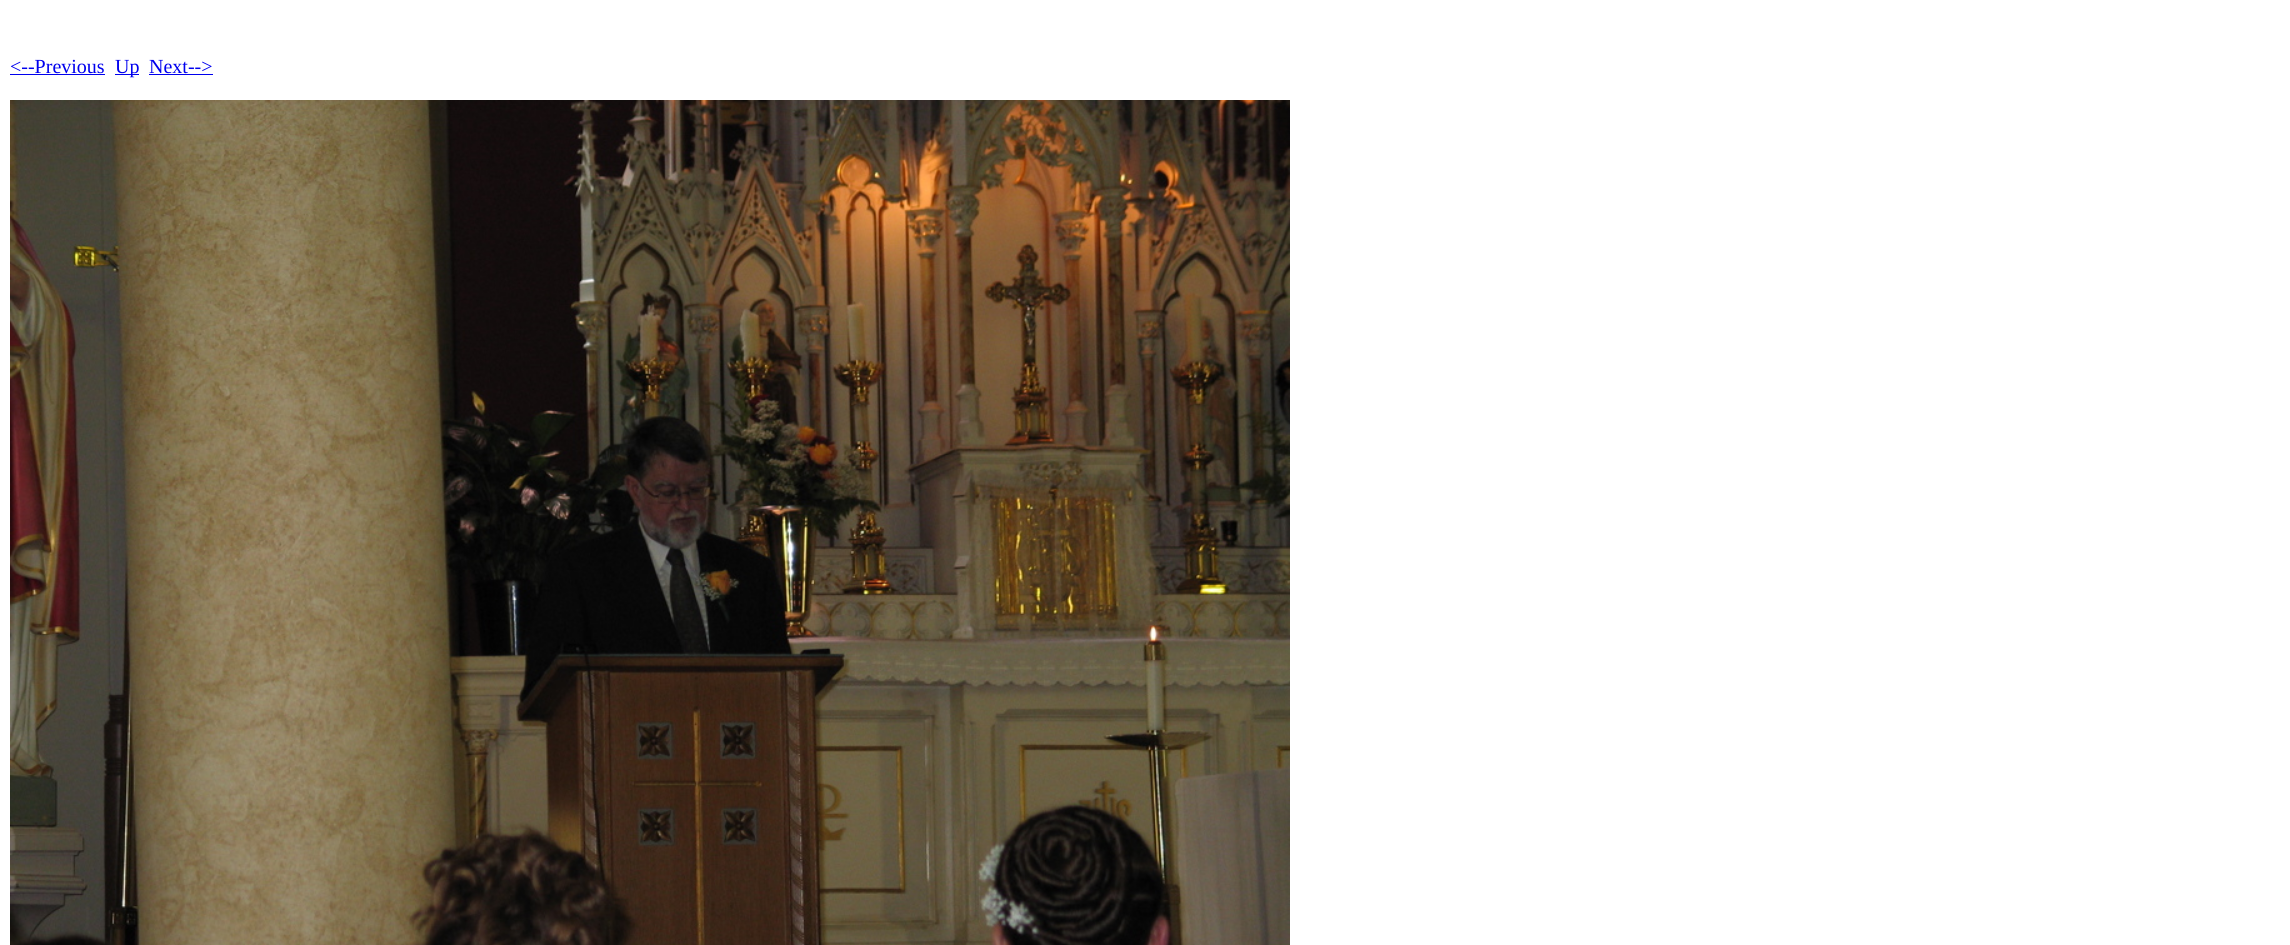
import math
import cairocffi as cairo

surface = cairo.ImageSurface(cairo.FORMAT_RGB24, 2290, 945)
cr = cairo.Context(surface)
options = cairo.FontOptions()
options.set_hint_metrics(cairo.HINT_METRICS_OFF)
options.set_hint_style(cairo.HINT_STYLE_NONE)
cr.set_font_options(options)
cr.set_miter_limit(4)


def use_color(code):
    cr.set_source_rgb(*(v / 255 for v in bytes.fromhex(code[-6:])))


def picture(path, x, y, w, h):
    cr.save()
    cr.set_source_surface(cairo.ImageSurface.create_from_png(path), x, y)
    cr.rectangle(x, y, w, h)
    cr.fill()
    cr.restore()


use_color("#ffffff")
cr.paint()
cr.select_font_face("Liberation Serif")
cr.set_font_size(20)
use_color("#0000ee")
cr.move_to(10, 73)
cr.show_text("<--Previous")
cr.rectangle(10, 74, 95, 1)
cr.fill()
cr.rectangle(115, 74, 24, 1)
cr.fill()
cr.move_to(115, 73)
cr.show_text("Up")
cr.move_to(149, 73)
cr.show_text("Next-->")
cr.rectangle(149, 74, 64, 1)
cr.fill()
picture("img1.png", 10, 100, 1280, 845)
surface.write_to_png("result.png")
